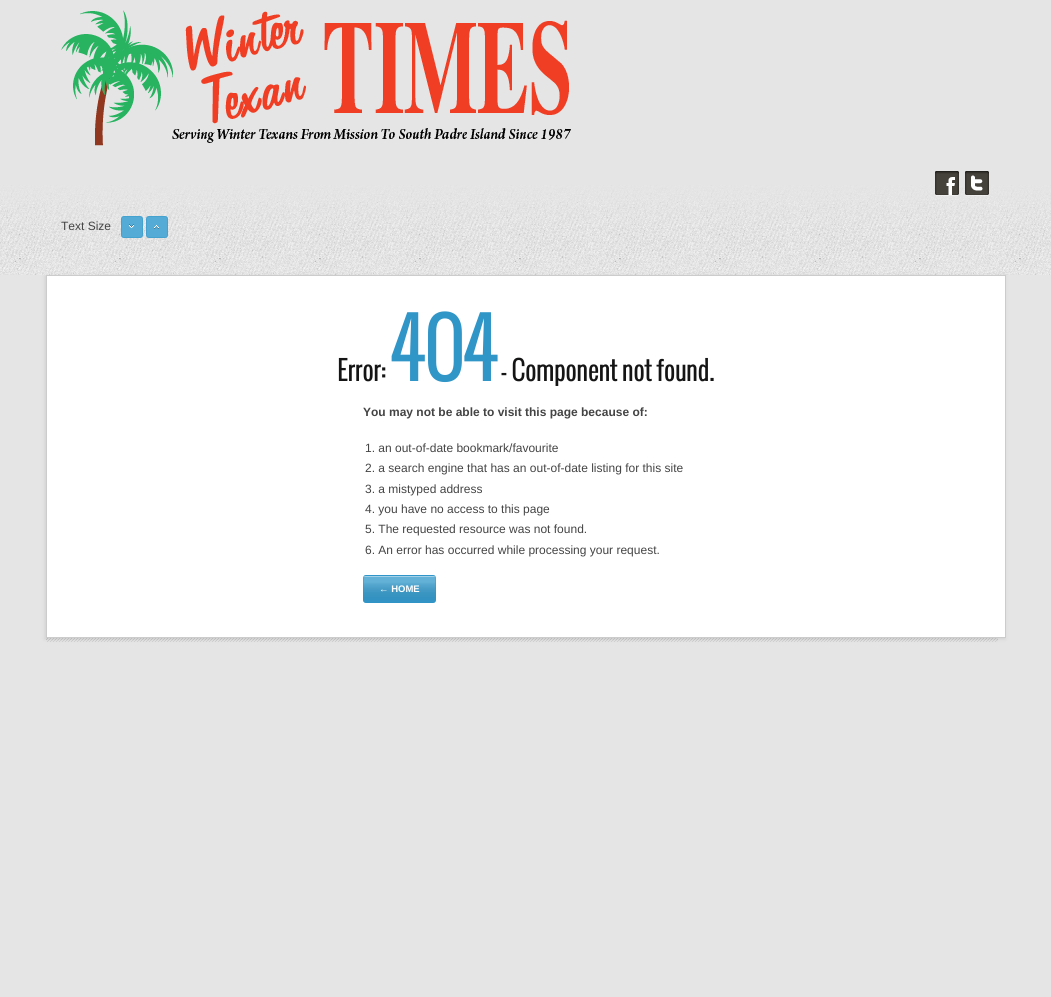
import math
import cairocffi as cairo

surface = cairo.ImageSurface(cairo.FORMAT_RGB24, 1051, 997)
cr = cairo.Context(surface)
options = cairo.FontOptions()
options.set_hint_metrics(cairo.HINT_METRICS_OFF)
options.set_hint_style(cairo.HINT_STYLE_NONE)
cr.set_font_options(options)
cr.set_miter_limit(4)


def use_color(code):
    cr.set_source_rgb(*(v / 255 for v in bytes.fromhex(code[-6:])))


def round_rect(x, y, w, h, r):
    cr.new_sub_path()
    for i, (u, v) in enumerate([(x + w - r, y + h - r), (x + r, y + h - r), (x + r, y + r), (x + w - r, y + r)]):
        cr.arc(u, v, r, i * math.pi / 2, (i + 1) * math.pi / 2)
    cr.close_path()


def shadow(x, y, w, h, r, blur, alpha):
    cr.push_group_with_content(cairo.CONTENT_ALPHA)
    cr.set_operator(cairo.OPERATOR_SOURCE)
    for i in range(15, -16, -2):
        e = blur * i / 6
        if min(w, h) + 2 * e > 0:
            cr.set_source_rgba(0, 0, 0, alpha * math.erfc((i - 1) / 8.5) / 2)
            round_rect(x - e, y - e, w + 2 * e, h + 2 * e, max(0, min(r + e + blur * .6, min(w, h) / 2 + e)))
            cr.fill()
    cr.mask(cr.pop_group())


def picture(path, x, y, w, h):
    cr.save()
    cr.set_source_surface(cairo.ImageSurface.create_from_png(path), x, y)
    cr.rectangle(x, y, w, h)
    cr.fill()
    cr.restore()


use_color("#e5e5e5")
cr.paint()
picture("img1.png", 0, 185, 1051, 90)
picture("img2.png", 61, 10, 510, 136)
picture("img3.png", 935, 171, 24, 25)
picture("img4.png", 965, 171, 24, 25)
cr.select_font_face("Liberation Sans")
cr.set_font_size(12)
use_color("#444444")
cr.move_to(61, 230)
cr.show_text("Text Size")
use_color("#54abd6")
round_rect(121, 216, 22, 22, 3)
cr.fill()
picture("img5.png", 129, 224, 5, 4)
round_rect(121.5, 216.5, 21, 21, 2.5)
cr.set_source_rgba(0.188, 0.584, 0.78, 0.4)
cr.set_line_width(1)
cr.stroke()
use_color("#54abd6")
round_rect(146, 216, 22, 22, 3)
cr.fill()
picture("img6.png", 154, 225, 5, 4)
round_rect(146.5, 216.5, 21, 21, 2.5)
cr.set_source_rgba(0.188, 0.584, 0.78, 0.4)
cr.stroke()
use_color("#000000")
shadow(45, 276, 960, 363, 0, 2, 0.1)
use_color("#ffffff")
cr.rectangle(46.5, 275.5, 959, 362)
cr.fill_preserve()
use_color("#cccccc")
cr.stroke()
cr.select_font_face("Oswald", cairo.FONT_SLANT_NORMAL, cairo.FONT_WEIGHT_BOLD)
cr.set_font_size(26.5)
use_color("#151515")
cr.move_to(337, 381)
cr.show_text("Error:")
cr.set_font_size(79)
use_color("#3095c7")
cr.move_to(391, 381)
cr.show_text("404")
cr.set_font_size(26.5)
use_color("#151515")
cr.move_to(500, 381)
cr.show_text("- Component not found.")
cr.select_font_face("Liberation Sans", cairo.FONT_SLANT_NORMAL, cairo.FONT_WEIGHT_BOLD)
cr.set_font_size(12)
use_color("#444444")
cr.move_to(363, 416)
cr.show_text("You may not be able to visit this page because of:")
cr.select_font_face("Liberation Sans")
cr.move_to(365, 452)
cr.show_text("1. an out-of-date bookmark/favourite")
cr.move_to(365, 472)
cr.show_text("2. a search engine that has an out-of-date listing for this site")
cr.move_to(365, 493)
cr.show_text("3. a mistyped address")
cr.move_to(365, 513)
cr.show_text("4. you have no access to this page")
cr.move_to(365, 533)
cr.show_text("5. The requested resource was not found.")
cr.move_to(365, 554)
cr.show_text("6. An error has occurred while processing your request.")
use_color("#3198cb")
round_rect(363, 575, 73, 28, 3)
cr.fill()
picture("img7.png", 363, 576, 73, 27)
round_rect(363.5, 575.5, 72, 27, 2.5)
cr.set_source_rgba(0.188, 0.584, 0.78, 0.4)
cr.stroke()
cr.select_font_face("Liberation Sans", cairo.FONT_SLANT_NORMAL, cairo.FONT_WEIGHT_BOLD)
cr.set_font_size(9.5)
use_color("#ffffff")
cr.move_to(379, 592)
cr.show_text("← HOME")
picture("img8.png", 46, 638, 952, 4)
surface.write_to_png("result.png")
